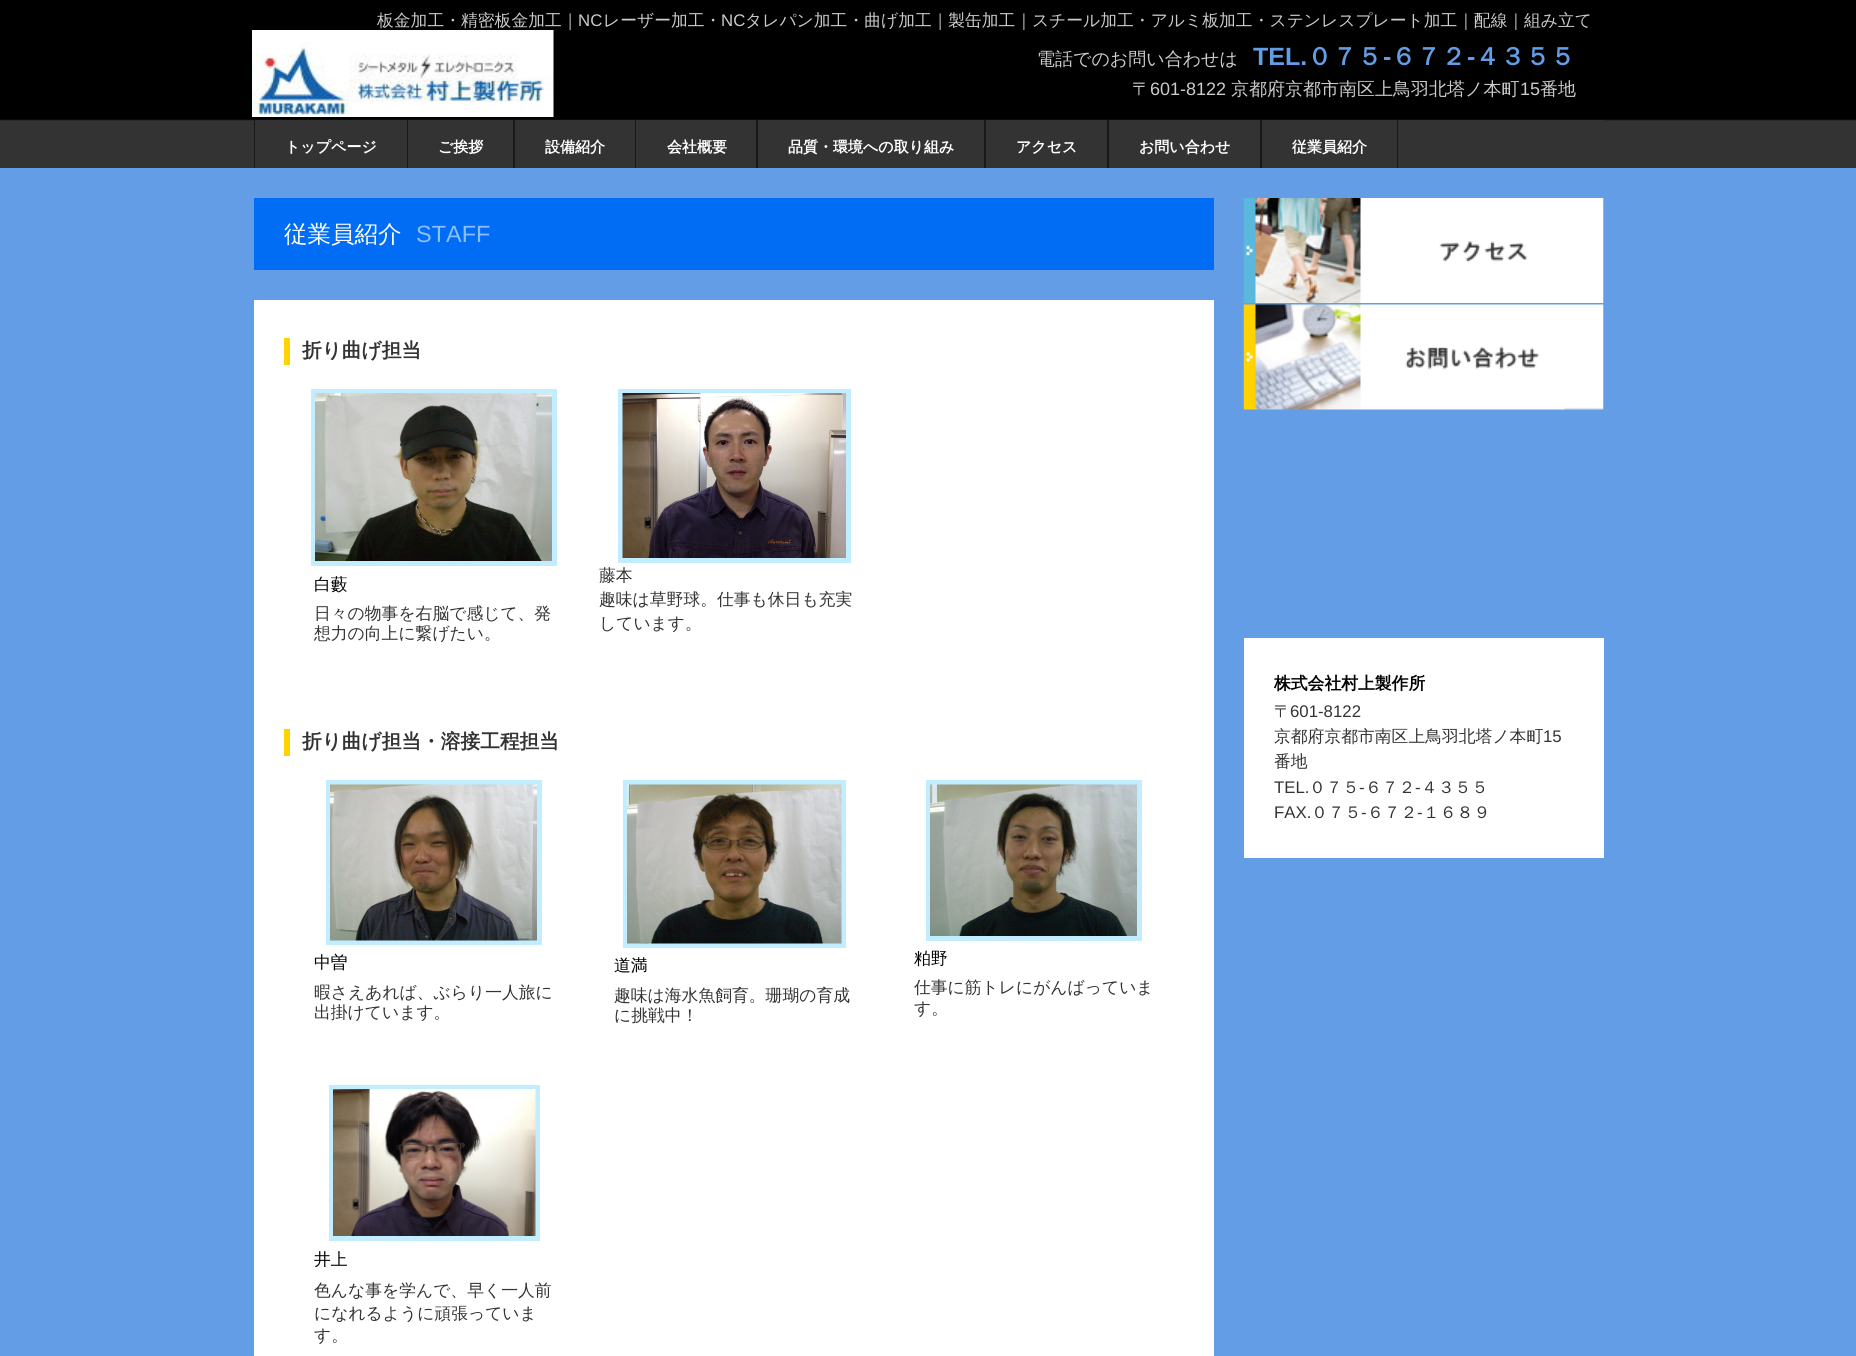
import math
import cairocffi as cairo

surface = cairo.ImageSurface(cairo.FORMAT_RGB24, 1856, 1356)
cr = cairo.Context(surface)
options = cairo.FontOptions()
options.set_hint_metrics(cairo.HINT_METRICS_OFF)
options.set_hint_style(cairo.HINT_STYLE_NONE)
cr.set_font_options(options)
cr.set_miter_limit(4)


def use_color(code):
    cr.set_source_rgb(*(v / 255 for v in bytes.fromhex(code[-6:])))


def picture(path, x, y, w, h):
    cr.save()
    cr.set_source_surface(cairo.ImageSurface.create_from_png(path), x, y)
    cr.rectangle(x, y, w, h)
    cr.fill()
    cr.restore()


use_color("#639de5")
cr.paint()
picture("img1.png", 0, 0, 1856, 168)
cr.select_font_face("WenQuanYi Zen Hei Medium")
cr.set_font_size(16.8)
use_color("#cccccc")
cr.move_to(377, 26)
cr.show_text("板金加工・精密板金加工｜")
cr.select_font_face("Liberation Sans")
cr.move_to(578, 26)
cr.show_text("NC")
cr.select_font_face("WenQuanYi Zen Hei Medium")
cr.move_to(603, 26)
cr.show_text("レーザー加工・")
cr.select_font_face("Liberation Sans")
cr.move_to(721, 26)
cr.show_text("NC")
cr.save()
cr.rectangle(252, 0, 1355, 30)
cr.clip()
cr.select_font_face("WenQuanYi Zen Hei Medium")
cr.move_to(745, 26)
cr.show_text("タレパン加工・曲げ加工｜製缶加工｜スチール加工・アルミ板加工・ステンレスプレート加工｜配線｜組み立て")
cr.restore()
picture("img2.png", 252, 30, 302, 87)
cr.select_font_face("WenQuanYi Zen Hei Medium")
cr.set_font_size(18)
cr.move_to(1037, 65)
cr.show_text("電話でのお問い合わせは")
cr.select_font_face("Liberation Sans", cairo.FONT_SLANT_NORMAL, cairo.FONT_WEIGHT_BOLD)
cr.set_font_size(25)
use_color("#639de5")
cr.move_to(1253, 65)
cr.show_text("TEL.")
cr.select_font_face("WenQuanYi Zen Hei", cairo.FONT_SLANT_NORMAL, cairo.FONT_WEIGHT_BOLD)
cr.move_to(1307, 65)
cr.show_text("０７５")
cr.select_font_face("Liberation Sans", cairo.FONT_SLANT_NORMAL, cairo.FONT_WEIGHT_BOLD)
cr.move_to(1383, 65)
cr.show_text("-")
cr.select_font_face("WenQuanYi Zen Hei", cairo.FONT_SLANT_NORMAL, cairo.FONT_WEIGHT_BOLD)
cr.move_to(1391, 65)
cr.show_text("６７２")
cr.select_font_face("Liberation Sans", cairo.FONT_SLANT_NORMAL, cairo.FONT_WEIGHT_BOLD)
cr.move_to(1467, 65)
cr.show_text("-")
cr.select_font_face("WenQuanYi Zen Hei", cairo.FONT_SLANT_NORMAL, cairo.FONT_WEIGHT_BOLD)
cr.move_to(1475, 65)
cr.show_text("４３５５")
cr.select_font_face("WenQuanYi Zen Hei Medium")
cr.set_font_size(18)
use_color("#cccccc")
cr.move_to(1132, 95)
cr.show_text("〒")
cr.select_font_face("Liberation Sans")
cr.move_to(1150, 95)
cr.show_text("601-8122")
cr.select_font_face("WenQuanYi Zen Hei Medium")
cr.move_to(1231, 95)
cr.show_text("京都府京都市南区上鳥羽北塔ノ本町")
cr.select_font_face("Liberation Sans")
cr.move_to(1520, 95)
cr.show_text("15")
cr.select_font_face("WenQuanYi Zen Hei Medium")
cr.move_to(1540, 95)
cr.show_text("番地")
use_color("#333333")
cr.rectangle(408, 120, 1196, 1)
cr.fill()
use_color("#191919")
cr.rectangle(254, 120, 1, 48)
cr.fill()
use_color("#333333")
cr.rectangle(255, 120, 152, 1)
cr.fill()
use_color("#191919")
cr.rectangle(407, 120, 1, 48)
cr.fill()
cr.select_font_face("WenQuanYi Zen Hei", cairo.FONT_SLANT_NORMAL, cairo.FONT_WEIGHT_BOLD)
cr.set_font_size(15)
use_color("#ffffff")
cr.move_to(285, 152)
cr.show_text("トップページ")
use_color("#191919")
cr.rectangle(513, 120, 2, 48)
cr.fill()
use_color("#ffffff")
cr.move_to(438, 152)
cr.show_text("ご挨拶")
use_color("#191919")
cr.rectangle(635, 120, 1, 48)
cr.fill()
use_color("#ffffff")
cr.move_to(545, 152)
cr.show_text("設備紹介")
use_color("#191919")
cr.rectangle(756, 120, 2, 48)
cr.fill()
use_color("#ffffff")
cr.move_to(667, 152)
cr.show_text("会社概要")
use_color("#191919")
cr.rectangle(984, 120, 2, 48)
cr.fill()
use_color("#ffffff")
cr.move_to(788, 152)
cr.show_text("品質・環境への取り組み")
use_color("#191919")
cr.rectangle(1107, 120, 2, 48)
cr.fill()
use_color("#ffffff")
cr.move_to(1016, 152)
cr.show_text("アクセス")
use_color("#191919")
cr.rectangle(1260, 120, 2, 48)
cr.fill()
use_color("#ffffff")
cr.move_to(1139, 152)
cr.show_text("お問い合わせ")
use_color("#191919")
cr.rectangle(1397, 120, 1, 48)
cr.fill()
use_color("#ffffff")
cr.move_to(1292, 152)
cr.show_text("従業員紹介")
use_color("#006df4")
cr.rectangle(254, 198, 960, 72)
cr.fill()
cr.select_font_face("WenQuanYi Zen Hei Medium")
cr.set_font_size(23.5)
use_color("#ffffff")
cr.move_to(284, 242)
cr.show_text("従業員紹介")
cr.select_font_face("Liberation Sans")
use_color("#8abeff")
cr.move_to(416, 242)
cr.show_text("STAFF")
use_color("#ffffff")
cr.rectangle(254, 300, 960, 1056)
cr.fill()
use_color("#ffd200")
cr.rectangle(284, 338, 6, 27)
cr.fill()
cr.select_font_face("WenQuanYi Zen Hei", cairo.FONT_SLANT_NORMAL, cairo.FONT_WEIGHT_BOLD)
cr.set_font_size(19.7)
use_color("#333333")
cr.move_to(302, 357)
cr.show_text("折り曲げ担当")
cr.rectangle(313.5, 391.5, 241, 172)
use_color("#c1edff")
cr.set_line_width(5)
cr.stroke()
picture("img3.png", 315, 393, 237, 168)
cr.select_font_face("WenQuanYi Zen Hei Medium")
cr.set_font_size(16.8)
use_color("#000000")
cr.move_to(314, 590)
cr.show_text("白藪")
use_color("#333333")
cr.move_to(314, 619)
cr.show_text("日々の物事を右脳で感じて、発")
cr.move_to(314, 639)
cr.show_text("想力の向上に繋げたい。")
cr.rectangle(620.5, 391.5, 228, 169)
use_color("#c1edff")
cr.stroke()
picture("img4.png", 622, 393, 224, 165)
use_color("#333333")
cr.move_to(599, 581)
cr.show_text("藤本")
cr.move_to(599, 605)
cr.show_text("趣味は草野球。仕事も休日も充実")
cr.move_to(599, 629)
cr.show_text("しています。")
use_color("#ffd200")
cr.rectangle(284, 729, 6, 27)
cr.fill()
cr.select_font_face("WenQuanYi Zen Hei", cairo.FONT_SLANT_NORMAL, cairo.FONT_WEIGHT_BOLD)
cr.set_font_size(19.7)
use_color("#333333")
cr.move_to(302, 748)
cr.show_text("折り曲げ担当・溶接工程担当")
cr.rectangle(328.5, 782.5, 211, 160)
use_color("#c1edff")
cr.stroke()
picture("img5.png", 330, 784, 207, 157)
cr.select_font_face("WenQuanYi Zen Hei Medium")
cr.set_font_size(16.8)
use_color("#000000")
cr.move_to(314, 968)
cr.show_text("中曽")
use_color("#333333")
cr.move_to(314, 998)
cr.show_text("暇さえあれば、ぶらり一人旅に")
cr.move_to(314, 1018)
cr.show_text("出掛けています。")
cr.rectangle(625.5, 782.5, 218, 163)
use_color("#c1edff")
cr.stroke()
picture("img6.png", 627, 784, 215, 160)
use_color("#000000")
cr.move_to(614, 971)
cr.show_text("道満")
use_color("#333333")
cr.move_to(614, 1001)
cr.show_text("趣味は海水魚飼育。珊瑚の育成")
cr.move_to(614, 1021)
cr.show_text("に挑戦中！")
cr.rectangle(928.5, 782.5, 211, 156)
use_color("#c1edff")
cr.stroke()
picture("img7.png", 930, 784, 207, 152)
use_color("#000000")
cr.move_to(914, 964)
cr.show_text("粕野")
use_color("#333333")
cr.move_to(914, 993)
cr.show_text("仕事に筋トレにがんばっていま")
cr.move_to(914, 1014)
cr.show_text("す。")
cr.rectangle(331.5, 1087.5, 206, 151)
use_color("#c1edff")
cr.stroke()
picture("img8.png", 333, 1089, 203, 147)
use_color("#000000")
cr.move_to(314, 1265)
cr.show_text("井上")
use_color("#333333")
cr.move_to(314, 1296)
cr.show_text("色んな事を学んで、早く一人前")
cr.move_to(314, 1319)
cr.show_text("になれるように頑張っていま")
cr.move_to(314, 1341)
cr.show_text("す。")
picture("img9.png", 1243, 198, 361, 105)
picture("img10.png", 1243, 304, 361, 106)
use_color("#ffffff")
cr.rectangle(1244, 638, 360, 220)
cr.fill()
cr.select_font_face("WenQuanYi Zen Hei", cairo.FONT_SLANT_NORMAL, cairo.FONT_WEIGHT_BOLD)
use_color("#000000")
cr.move_to(1274, 689)
cr.show_text("株式会社村上製作所")
cr.select_font_face("WenQuanYi Zen Hei Medium")
use_color("#333333")
cr.move_to(1274, 717)
cr.show_text("〒")
cr.select_font_face("Liberation Sans")
cr.move_to(1290, 717)
cr.show_text("601-8122")
cr.select_font_face("WenQuanYi Zen Hei Medium")
cr.move_to(1274, 742)
cr.show_text("京都府京都市南区上鳥羽北塔ノ本町")
cr.select_font_face("Liberation Sans")
cr.move_to(1543, 742)
cr.show_text("15")
cr.select_font_face("WenQuanYi Zen Hei Medium")
cr.move_to(1274, 767)
cr.show_text("番地")
cr.select_font_face("Liberation Sans")
cr.move_to(1274, 793)
cr.show_text("TEL.")
cr.select_font_face("WenQuanYi Zen Hei Medium")
cr.move_to(1309, 793)
cr.show_text("０７５")
cr.select_font_face("Liberation Sans")
cr.move_to(1359, 793)
cr.show_text("-")
cr.select_font_face("WenQuanYi Zen Hei Medium")
cr.move_to(1365, 793)
cr.show_text("６７２")
cr.select_font_face("Liberation Sans")
cr.move_to(1415, 793)
cr.show_text("-")
cr.select_font_face("WenQuanYi Zen Hei Medium")
cr.move_to(1421, 793)
cr.show_text("４３５５")
cr.select_font_face("Liberation Sans")
cr.move_to(1274, 818)
cr.show_text("FAX.")
cr.select_font_face("WenQuanYi Zen Hei Medium")
cr.move_to(1311, 818)
cr.show_text("０７５")
cr.select_font_face("Liberation Sans")
cr.move_to(1361, 818)
cr.show_text("-")
cr.select_font_face("WenQuanYi Zen Hei Medium")
cr.move_to(1367, 818)
cr.show_text("６７２")
cr.select_font_face("Liberation Sans")
cr.move_to(1417, 818)
cr.show_text("-")
cr.select_font_face("WenQuanYi Zen Hei Medium")
cr.move_to(1423, 818)
cr.show_text("１６８９")
surface.write_to_png("result.png")
